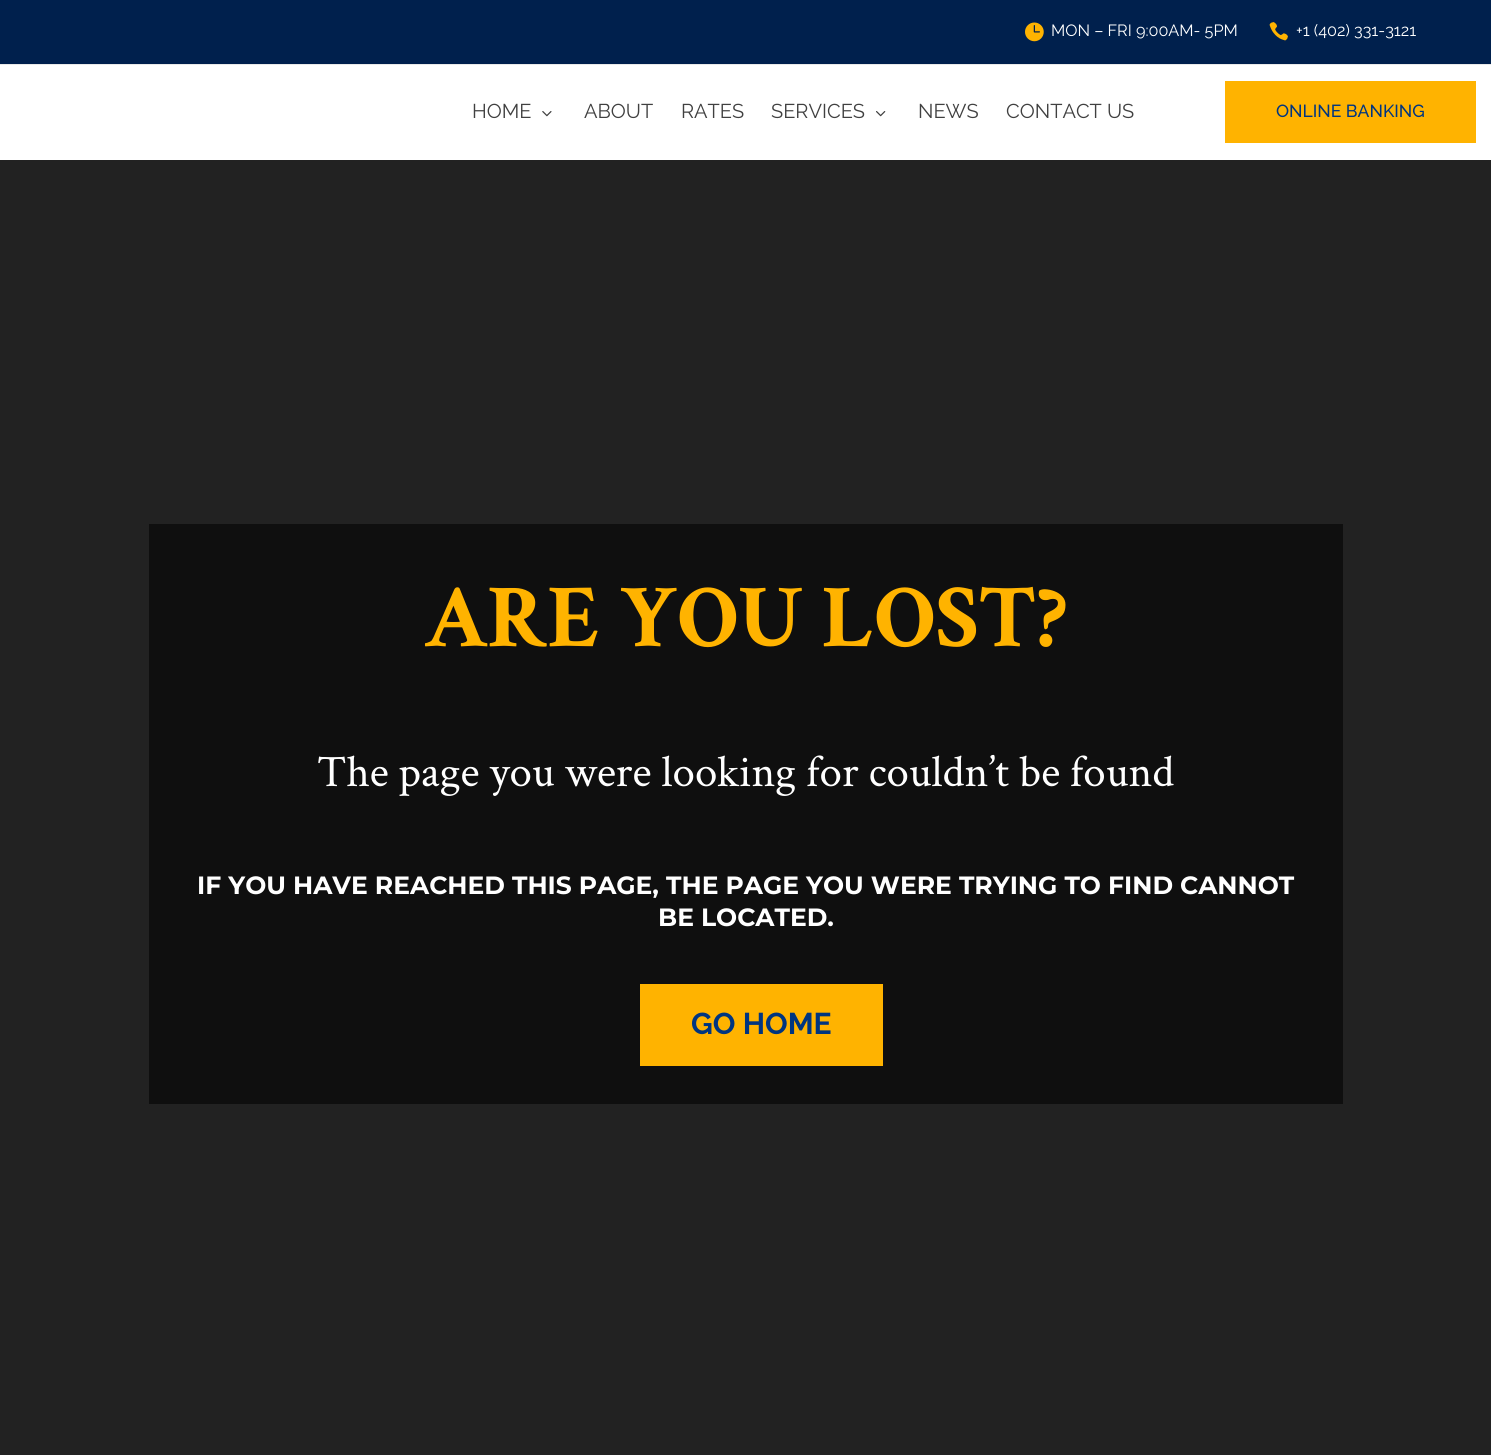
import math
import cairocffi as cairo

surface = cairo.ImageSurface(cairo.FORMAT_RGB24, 1491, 1455)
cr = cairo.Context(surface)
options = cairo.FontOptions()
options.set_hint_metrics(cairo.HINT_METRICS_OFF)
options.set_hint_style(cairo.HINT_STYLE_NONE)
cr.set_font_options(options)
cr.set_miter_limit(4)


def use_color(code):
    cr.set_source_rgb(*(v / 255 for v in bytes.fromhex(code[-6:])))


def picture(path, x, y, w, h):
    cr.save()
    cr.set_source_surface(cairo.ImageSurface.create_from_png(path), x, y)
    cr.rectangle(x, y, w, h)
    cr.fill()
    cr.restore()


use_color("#ffffff")
cr.paint()
use_color("#00204d")
cr.rectangle(0, 0, 1491, 64)
cr.fill()
use_color("#e9e9e9")
cr.rectangle(0, 64, 1491, 1)
cr.fill()
picture("img1.png", 1025, 22, 19, 20)
cr.select_font_face("Raleway")
cr.set_font_size(16.25)
use_color("#ffffff")
cr.move_to(1051, 36)
cr.show_text("MON – FRI 9:00AM- 5PM")
picture("img2.png", 1269, 22, 19, 19)
cr.move_to(1296, 36)
cr.show_text("+1 (402) 331-3121")
cr.set_font_size(20)
use_color("#404040")
cr.move_to(472, 118)
cr.show_text("HOME")
picture("img3.png", 542, 111, 10, 6)
cr.move_to(584, 118)
cr.show_text("ABOUT")
cr.move_to(681, 118)
cr.show_text("RATES")
cr.move_to(771, 118)
cr.show_text("SERVICES")
picture("img4.png", 876, 111, 10, 6)
cr.move_to(918, 118)
cr.show_text("NEWS")
cr.move_to(1006, 118)
cr.show_text("CONTACT US")
use_color("#ffb300")
cr.rectangle(1225, 81, 251, 62)
cr.fill()
cr.select_font_face("Raleway Medium")
cr.set_font_size(17.5)
use_color("#003580")
cr.move_to(1276, 117)
cr.show_text("ONLINE BANKING")
use_color("#222222")
cr.rectangle(0, 160, 1491, 1295)
cr.fill()
use_color("#0f0f0f")
cr.rectangle(149, 524, 1194, 580)
cr.fill()
cr.select_font_face("Crimson Text", cairo.FONT_SLANT_NORMAL, cairo.FONT_WEIGHT_BOLD)
cr.set_font_size(90)
use_color("#ffb300")
cr.move_to(424, 646)
cr.show_text("ARE YOU LOST?")
cr.select_font_face("Crimson Text")
cr.set_font_size(45)
use_color("#ffffff")
cr.move_to(317, 786)
cr.show_text("The page you were looking for couldn’t be found")
cr.select_font_face("Montserrat", cairo.FONT_SLANT_NORMAL, cairo.FONT_WEIGHT_BOLD)
cr.set_font_size(25)
cr.move_to(197, 894)
cr.show_text("IF YOU HAVE REACHED THIS PAGE, THE PAGE YOU WERE TRYING TO FIND CANNOT")
cr.move_to(658, 926)
cr.show_text("BE LOCATED.")
use_color("#ffb300")
cr.rectangle(640, 984, 243, 82)
cr.fill()
cr.select_font_face("Raleway", cairo.FONT_SLANT_NORMAL, cairo.FONT_WEIGHT_BOLD)
cr.set_font_size(30)
use_color("#003580")
cr.move_to(691, 1034)
cr.show_text("GO HOME")
surface.write_to_png("result.png")
